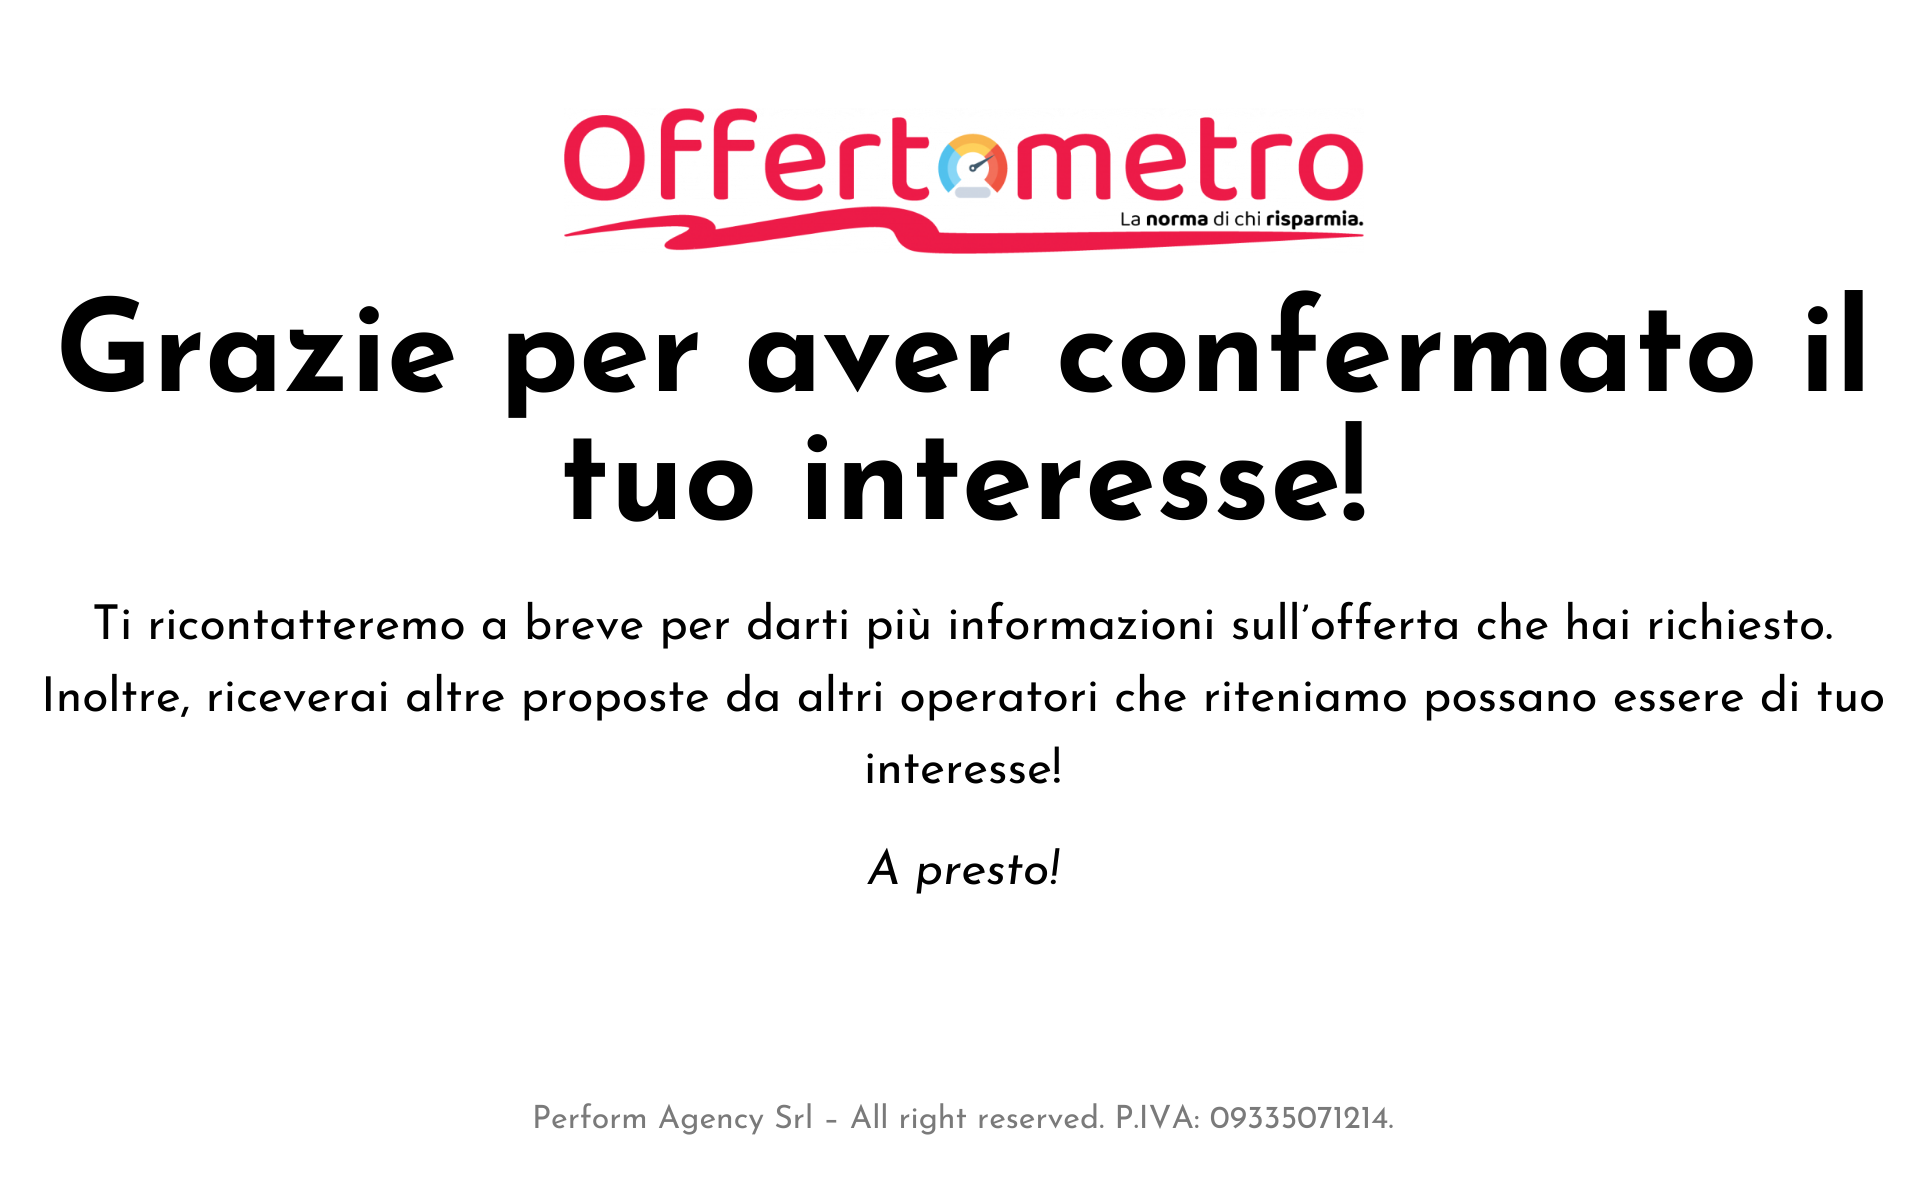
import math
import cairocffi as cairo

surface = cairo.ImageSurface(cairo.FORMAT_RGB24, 1925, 1193)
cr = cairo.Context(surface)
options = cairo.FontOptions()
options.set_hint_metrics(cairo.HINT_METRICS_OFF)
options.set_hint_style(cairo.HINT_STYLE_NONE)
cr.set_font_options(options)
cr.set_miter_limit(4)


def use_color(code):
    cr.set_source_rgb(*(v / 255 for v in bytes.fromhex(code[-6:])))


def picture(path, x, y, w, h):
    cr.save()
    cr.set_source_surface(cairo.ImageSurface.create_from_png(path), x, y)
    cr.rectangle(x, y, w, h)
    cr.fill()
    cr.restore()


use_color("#ffffff")
cr.paint()
picture("img1.png", 564, 108, 800, 146)
cr.select_font_face("Josefin Sans", cairo.FONT_SLANT_NORMAL, cairo.FONT_WEIGHT_BOLD)
cr.set_font_size(128)
use_color("#000000")
cr.move_to(55, 391)
cr.show_text("Grazie per aver confermato il")
cr.move_to(559, 519)
cr.show_text("tuo interesse!")
cr.select_font_face("Josefin Sans")
cr.set_font_size(48)
cr.move_to(92, 639)
cr.show_text("Ti ricontatteremo a breve per darti più informazioni sull’offerta che hai richiesto.")
cr.move_to(41, 711)
cr.show_text("Inoltre, riceverai altre proposte da altri operatori che riteniamo possano essere di tuo")
cr.move_to(864, 783)
cr.show_text("interesse!")
cr.select_font_face("Josefin Sans", cairo.FONT_SLANT_ITALIC)
cr.move_to(867, 884)
cr.show_text("A presto!")
cr.select_font_face("Josefin Sans")
cr.set_font_size(32)
use_color("#7a7a7a")
cr.move_to(532, 1128)
cr.show_text("Perform Agency Srl – All right reserved. P.IVA: 09335071214.")
surface.write_to_png("result.png")
